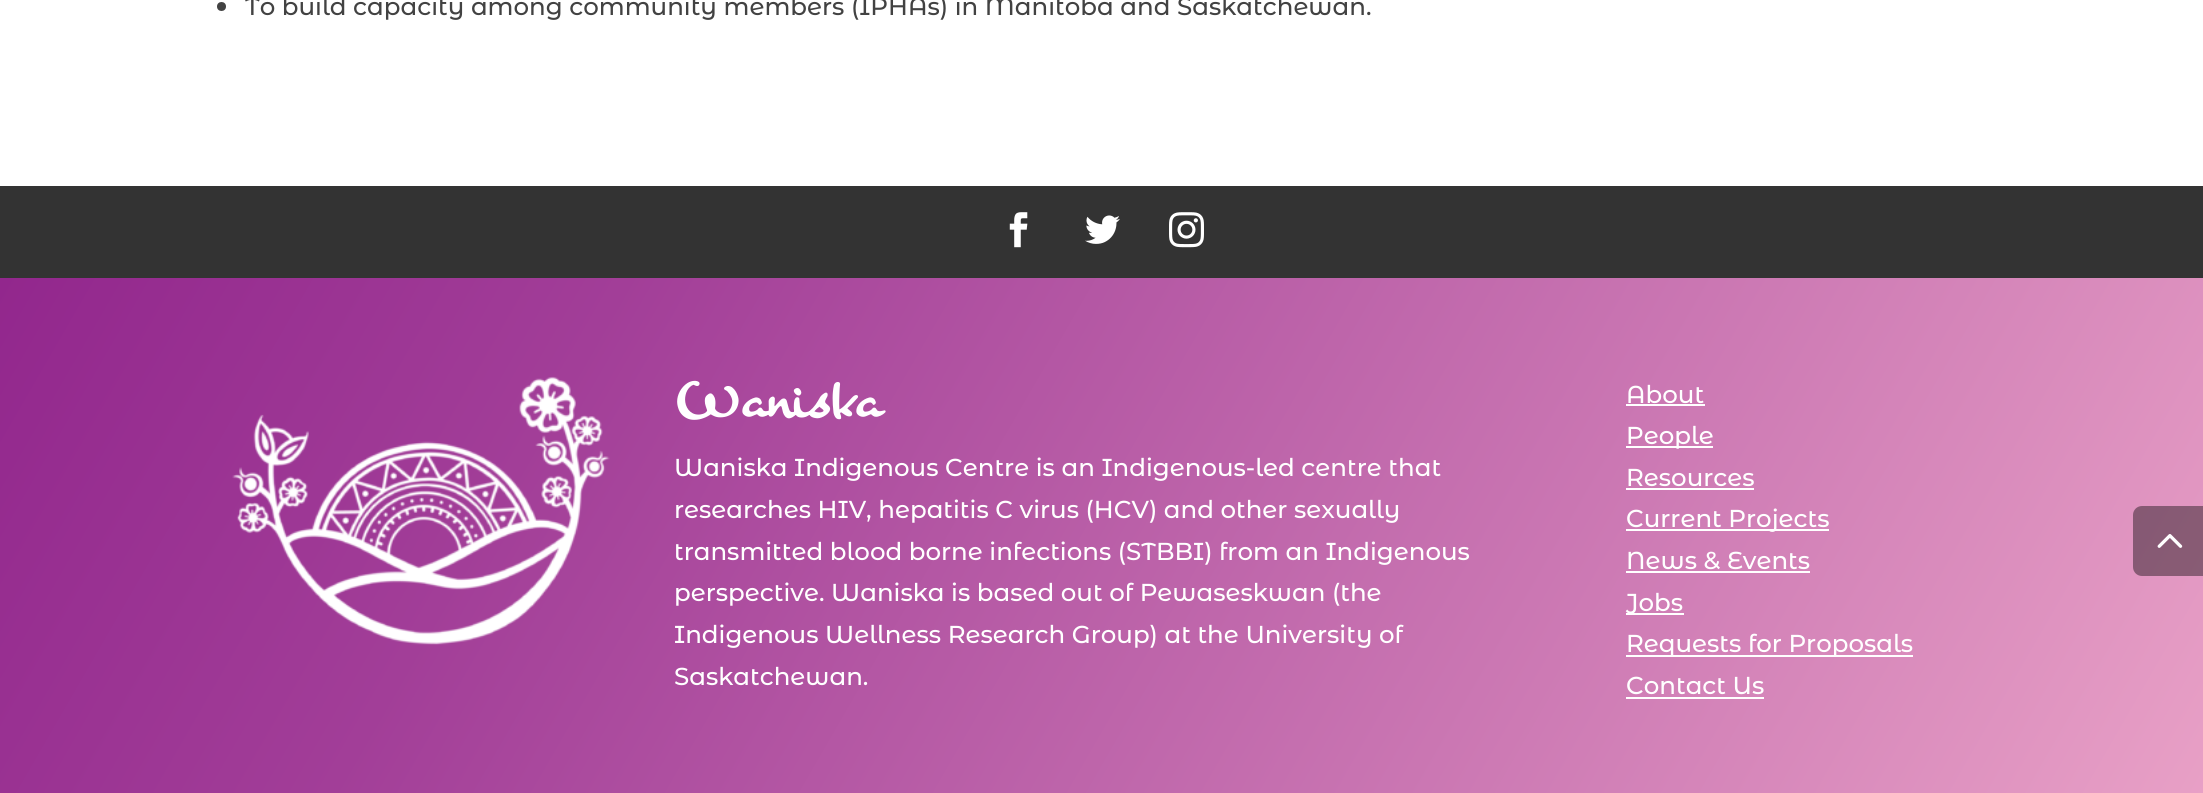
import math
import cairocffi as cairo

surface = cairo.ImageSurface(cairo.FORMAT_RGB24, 2203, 793)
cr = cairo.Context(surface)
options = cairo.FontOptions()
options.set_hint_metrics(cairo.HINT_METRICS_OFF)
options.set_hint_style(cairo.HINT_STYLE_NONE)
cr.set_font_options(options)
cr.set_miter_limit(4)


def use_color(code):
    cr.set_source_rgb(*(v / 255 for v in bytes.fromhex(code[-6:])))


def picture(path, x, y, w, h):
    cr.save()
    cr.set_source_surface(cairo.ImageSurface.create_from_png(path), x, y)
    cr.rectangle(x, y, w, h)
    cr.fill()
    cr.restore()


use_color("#ffffff")
cr.paint()
use_color("#424242")
cr.arc(221.5, 6.5, 4.5, 0, 2 * math.pi)
cr.fill()
cr.select_font_face("Montserrat Alternates Medium")
cr.set_font_size(24.5)
cr.move_to(245, 15)
cr.show_text("To build capacity among community members (IPHAs) in Manitoba and Saskatchewan.")
use_color("#333333")
cr.rectangle(0, 186, 2203, 92)
cr.fill()
picture("img1.png", 1009, 212, 19, 36)
picture("img2.png", 1085, 215, 35, 29)
picture("img3.png", 1169, 212, 35, 36)
gradient = cairo.LinearGradient(164, -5.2, 2040, 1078)
gradient.add_color_stop_rgba(0, 0.573, 0.153, 0.553, 1)
gradient.add_color_stop_rgba(0.25, 0.635, 0.243, 0.596, 1)
gradient.add_color_stop_rgba(1, 0.91, 0.627, 0.776, 1)
cr.set_source(gradient)
cr.rectangle(0, 278, 2203, 515)
cr.fill()
picture("img4.png", 232, 376, 378, 269)
cr.select_font_face("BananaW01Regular", cairo.FONT_SLANT_NORMAL, cairo.FONT_WEIGHT_BOLD)
cr.set_font_size(49)
use_color("#ffffff")
cr.move_to(674, 417)
cr.show_text("Waniska")
cr.select_font_face("Montserrat Alternates Medium")
cr.set_font_size(24.5)
cr.move_to(674, 476)
cr.show_text("Waniska Indigenous Centre is an Indigenous-led centre that")
cr.move_to(674, 518)
cr.show_text("researches HIV, hepatitis C virus (HCV) and other sexually")
cr.move_to(674, 560)
cr.show_text("transmitted blood borne infections (STBBI) from an Indigenous")
cr.move_to(674, 601)
cr.show_text("perspective. Waniska is based out of Pewaseskwan (the")
cr.move_to(674, 643)
cr.show_text("Indigenous Wellness Research Group) at the University of")
cr.move_to(674, 685)
cr.show_text("Saskatchewan.")
cr.move_to(1626, 403)
cr.show_text("About")
cr.rectangle(1626, 404, 79, 2)
cr.fill()
cr.rectangle(1626, 446, 87, 2)
cr.fill()
cr.move_to(1626, 444)
cr.show_text("People")
cr.move_to(1626, 486)
cr.show_text("Resources")
cr.rectangle(1626, 488, 128, 2)
cr.fill()
cr.rectangle(1626, 529, 203, 2)
cr.fill()
cr.move_to(1626, 527)
cr.show_text("Current Projects")
cr.move_to(1626, 569)
cr.show_text("News & Events")
cr.rectangle(1626, 571, 184, 2)
cr.fill()
cr.rectangle(1626, 613, 58, 2)
cr.fill()
cr.move_to(1626, 611)
cr.show_text("Jobs")
cr.rectangle(1626, 655, 287, 2)
cr.fill()
cr.move_to(1626, 652)
cr.show_text("Requests for Proposals")
cr.move_to(1626, 694)
cr.show_text("Contact Us")
cr.rectangle(1626, 697, 138, 2)
cr.fill()
cr.set_source_rgba(0, 0, 0, 0.4)
cr.new_path()
cr.move_to(2142, 506)
cr.line_to(2203, 506)
cr.line_to(2203, 576)
cr.line_to(2142, 576)
cr.curve_to(2137, 576, 2133, 572, 2133, 567)
cr.line_to(2133, 515)
cr.curve_to(2133, 510, 2137, 506, 2142, 506)
cr.close_path()
cr.fill()
picture("img5.png", 2157, 534, 26, 14)
surface.write_to_png("result.png")
